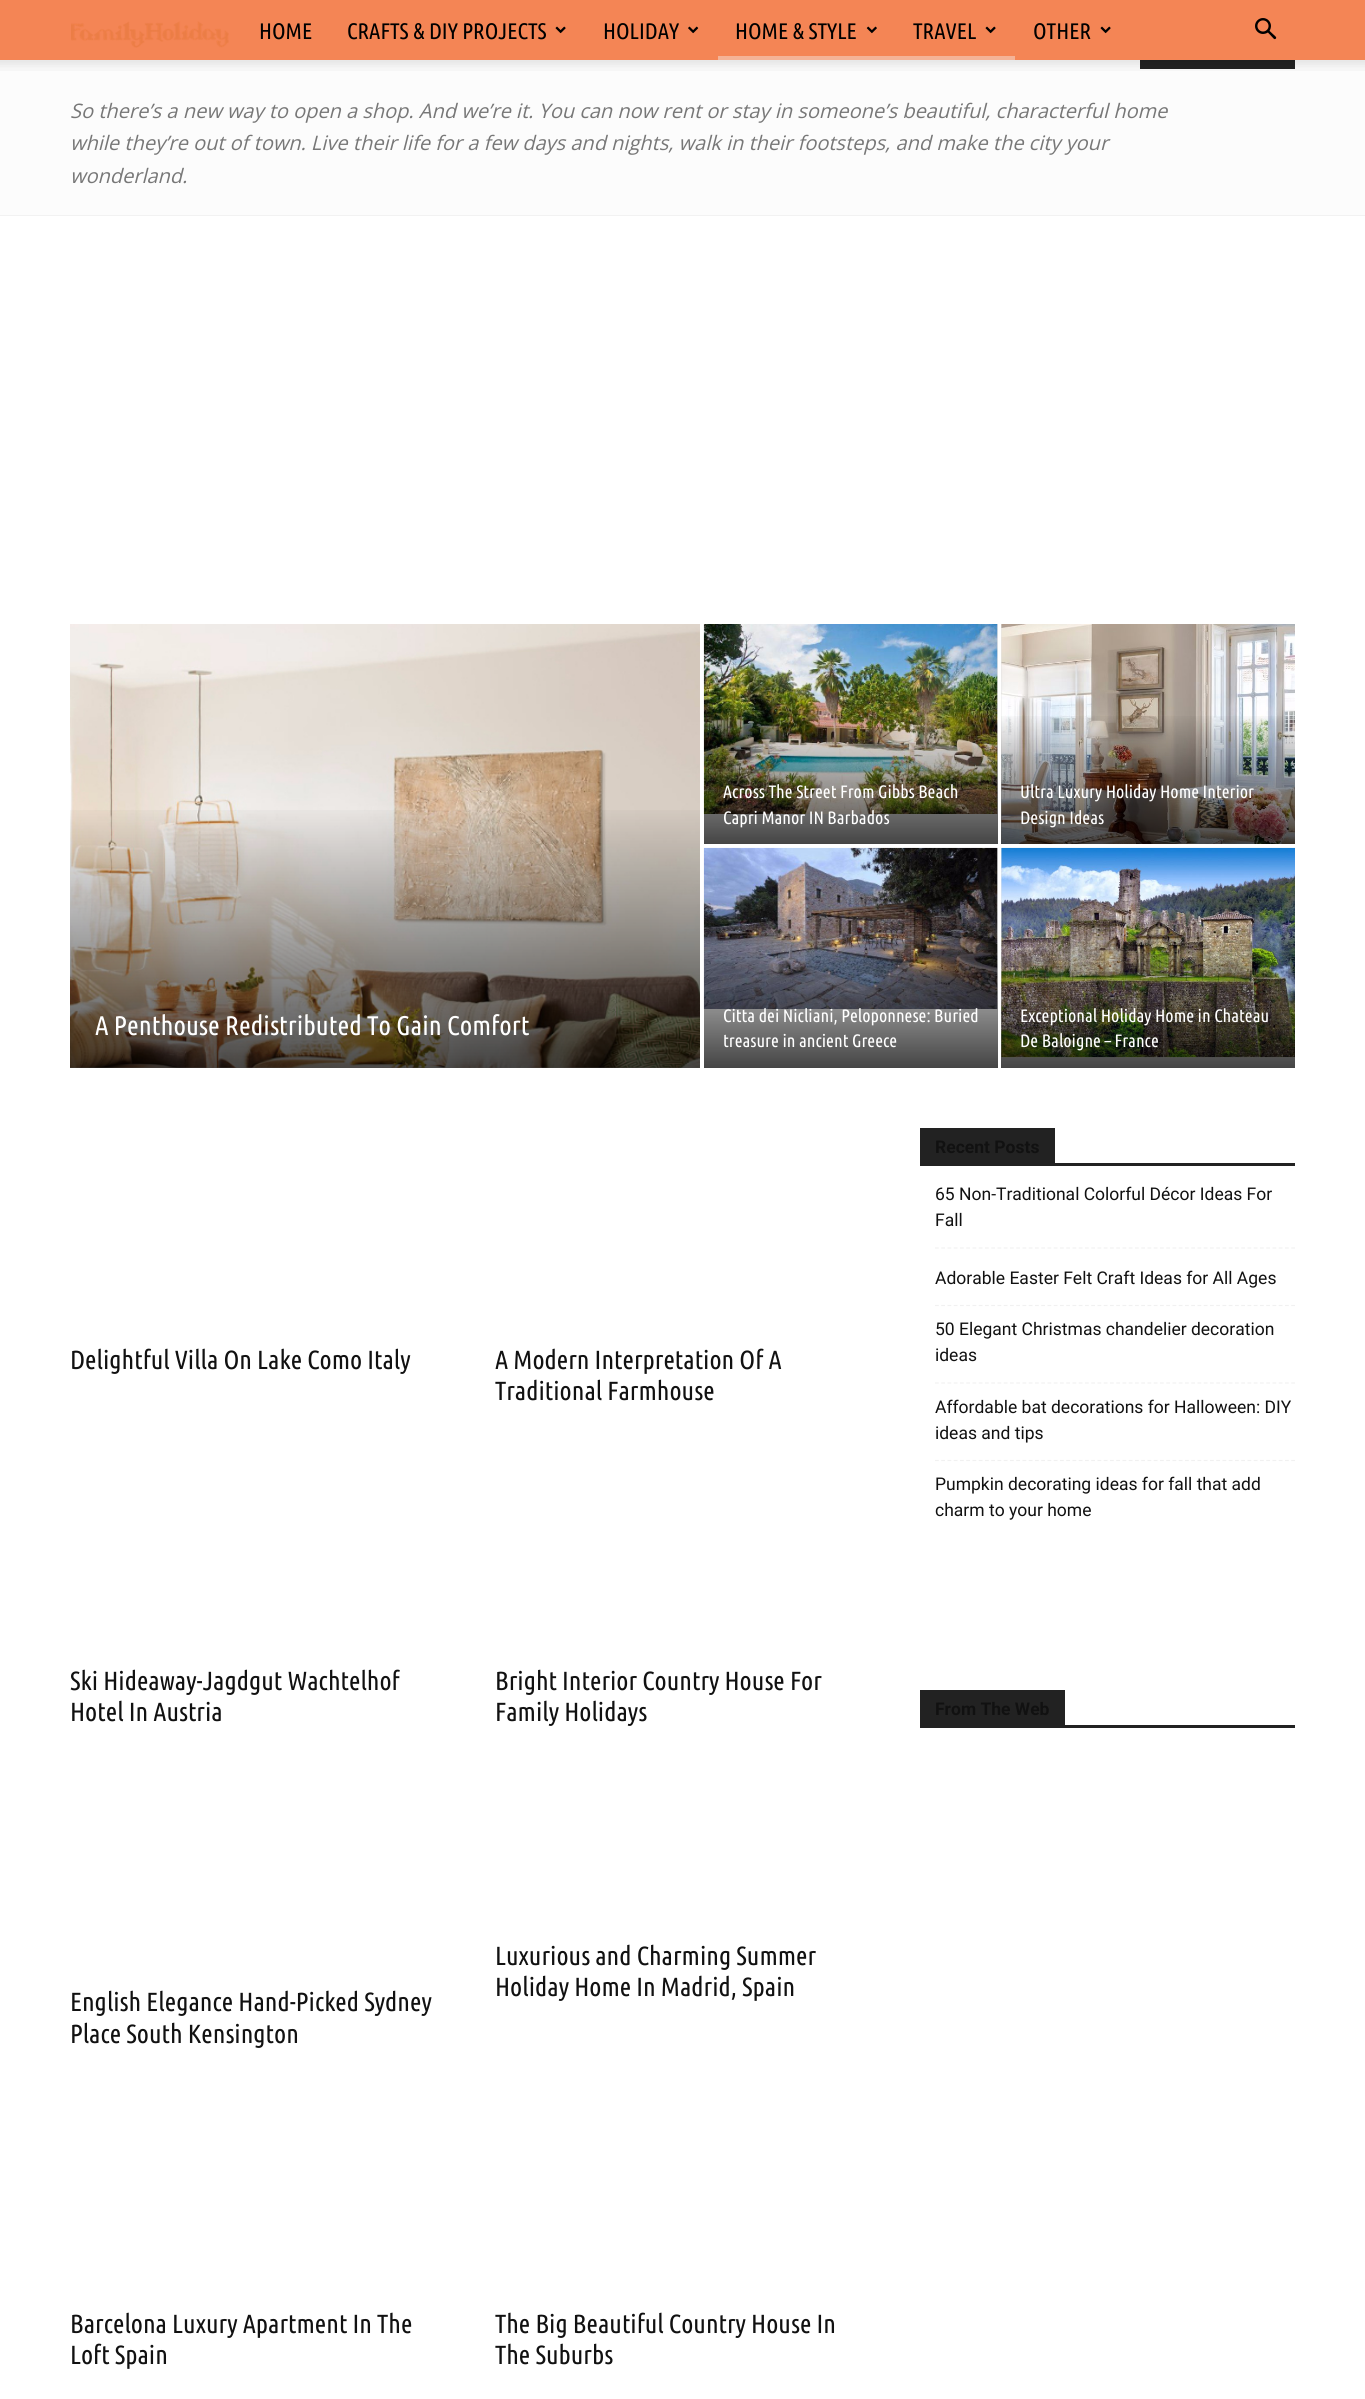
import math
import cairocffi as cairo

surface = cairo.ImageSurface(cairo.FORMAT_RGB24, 1365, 2399)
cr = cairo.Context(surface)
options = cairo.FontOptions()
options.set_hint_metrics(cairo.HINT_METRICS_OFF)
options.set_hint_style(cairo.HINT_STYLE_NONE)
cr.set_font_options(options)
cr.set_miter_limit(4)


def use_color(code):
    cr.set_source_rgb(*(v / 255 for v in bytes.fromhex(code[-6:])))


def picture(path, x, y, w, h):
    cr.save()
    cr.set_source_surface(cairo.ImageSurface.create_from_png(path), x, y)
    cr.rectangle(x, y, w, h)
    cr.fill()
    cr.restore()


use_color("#ffffff")
cr.paint()
use_color("#f48555")
cr.rectangle(0, 0, 1365, 60)
cr.fill()
picture("img1.png", 71, 21, 158, 27)
cr.select_font_face("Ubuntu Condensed")
cr.set_font_size(22.5)
use_color("#000000")
cr.move_to(259, 39)
cr.show_text("HOME")
cr.move_to(347, 39)
cr.show_text("CRAFTS & DIY PROJECTS")
picture("img2.png", 555, 26, 11, 8)
cr.move_to(603, 39)
cr.show_text("HOLIDAY")
picture("img3.png", 688, 26, 11, 8)
cr.move_to(735, 39)
cr.show_text("HOME & STYLE")
picture("img4.png", 866, 26, 11, 8)
use_color("#f4b397")
cr.rectangle(718, 56, 297, 4)
cr.fill()
use_color("#000000")
cr.move_to(913, 39)
cr.show_text("TRAVEL")
picture("img2.png", 985, 26, 11, 8)
cr.move_to(1033, 39)
cr.show_text("OTHER")
picture("img2.png", 1100, 26, 11, 8)
picture("img5.png", 1255, 18, 22, 22)
use_color("#fcfcfc")
cr.rectangle(0, 60, 1365, 155)
cr.fill()
use_color("#222222")
cr.rectangle(1140, 60, 155, 9)
cr.fill()
picture("img6.png", 0, 60, 1365, 11)
use_color("#f2f2f2")
cr.rectangle(0, 215, 1365, 1)
cr.fill()
cr.select_font_face("Open Sans", cairo.FONT_SLANT_ITALIC)
cr.set_font_size(20)
use_color("#777777")
cr.move_to(70, 118)
cr.show_text("So there’s a new way to open a shop. And we’re it. You can now rent or stay in someone’s beautiful, characterful home")
cr.move_to(70, 150)
cr.show_text("while they’re out of town. Live their life for a few days and nights, walk in their footsteps, and make the city your")
cr.move_to(70, 183)
cr.show_text("wonderland.")
picture("img7.png", 70, 624, 630, 444)
gradient = cairo.LinearGradient(385, 624, 385, 1068)
gradient.add_color_stop_rgba(0.4, 0, 0, 0, 0)
gradient.add_color_stop_rgba(1, 0, 0, 0, 0.7)
cr.set_source(gradient)
cr.rectangle(70, 810, 630, 258)
cr.fill()
cr.select_font_face("Ubuntu Condensed")
cr.set_font_size(27)
use_color("#ffffff")
cr.move_to(95, 1035)
cr.show_text("A Penthouse Redistributed To Gain Comfort")
use_color("#e5e5e5")
cr.rectangle(704, 624, 294, 220)
cr.fill()
picture("img8.png", 703, 624, 295, 190)
gradient = cairo.LinearGradient(851, 624, 851, 844)
gradient.add_color_stop_rgba(0.4, 0, 0, 0, 0)
gradient.add_color_stop_rgba(1, 0, 0, 0, 0.7)
cr.set_source(gradient)
cr.rectangle(704, 716, 294, 128)
cr.fill()
cr.set_font_size(18)
use_color("#ffffff")
cr.move_to(723, 798)
cr.show_text("Across The Street From Gibbs Beach")
cr.move_to(723, 824)
cr.show_text("Capri Manor IN Barbados")
use_color("#e5e5e5")
cr.rectangle(1001, 624, 1, 220)
cr.fill()
picture("img9.png", 1001, 624, 294, 220)
gradient = cairo.LinearGradient(1148, 624, 1148, 844)
gradient.add_color_stop_rgba(0.4, 0, 0, 0, 0)
gradient.add_color_stop_rgba(1, 0, 0, 0, 0.7)
cr.set_source(gradient)
cr.rectangle(1001, 716, 294, 128)
cr.fill()
use_color("#ffffff")
cr.move_to(1020, 798)
cr.show_text("Ultra Luxury Holiday Home Interior")
cr.move_to(1020, 824)
cr.show_text("Design Ideas")
use_color("#e5e5e5")
cr.rectangle(704, 848, 294, 220)
cr.fill()
picture("img10.png", 703, 847, 295, 162)
gradient = cairo.LinearGradient(851, 848, 851, 1068)
gradient.add_color_stop_rgba(0.4, 0, 0, 0, 0)
gradient.add_color_stop_rgba(1, 0, 0, 0, 0.7)
cr.set_source(gradient)
cr.rectangle(704, 940, 294, 128)
cr.fill()
use_color("#ffffff")
cr.move_to(723, 1022)
cr.show_text("Citta dei Nicliani, Peloponnese: Buried")
cr.move_to(723, 1047)
cr.show_text("treasure in ancient Greece")
use_color("#e5e5e5")
cr.rectangle(1001, 848, 294, 220)
cr.fill()
picture("img11.png", 1001, 847, 294, 211)
gradient = cairo.LinearGradient(1148, 848, 1148, 1068)
gradient.add_color_stop_rgba(0.4, 0, 0, 0, 0)
gradient.add_color_stop_rgba(1, 0, 0, 0, 0.7)
cr.set_source(gradient)
cr.rectangle(1001, 940, 294, 128)
cr.fill()
use_color("#ffffff")
cr.move_to(1020, 1022)
cr.show_text("Exceptional Holiday Home in Chateau")
cr.move_to(1020, 1047)
cr.show_text("De Baloigne – France")
cr.set_font_size(26.25)
use_color("#111111")
cr.move_to(70, 1369)
cr.show_text("Delightful Villa On Lake Como Italy")
cr.move_to(495, 1369)
cr.show_text("A Modern Interpretation Of A")
cr.move_to(495, 1400)
cr.show_text("Traditional Farmhouse")
cr.move_to(70, 1690)
cr.show_text("Ski Hideaway-Jagdgut Wachtelhof")
cr.move_to(70, 1721)
cr.show_text("Hotel In Austria")
cr.move_to(495, 1690)
cr.show_text("Bright Interior Country House For")
cr.move_to(495, 1721)
cr.show_text("Family Holidays")
cr.move_to(495, 1965)
cr.show_text("Luxurious and Charming Summer")
cr.move_to(495, 1996)
cr.show_text("Holiday Home In Madrid, Spain")
cr.move_to(70, 2011)
cr.show_text("English Elegance Hand-Picked Sydney")
cr.move_to(70, 2043)
cr.show_text("Place South Kensington")
cr.move_to(70, 2333)
cr.show_text("Barcelona Luxury Apartment In The")
cr.move_to(70, 2364)
cr.show_text("Loft Spain")
cr.move_to(495, 2333)
cr.show_text("The Big Beautiful Country House In")
cr.move_to(495, 2364)
cr.show_text("The Suburbs")
use_color("#222222")
cr.rectangle(920, 1163, 375, 3)
cr.fill()
cr.rectangle(920, 1128, 135, 35)
cr.fill()
cr.select_font_face("Roboto", cairo.FONT_SLANT_NORMAL, cairo.FONT_WEIGHT_BOLD)
cr.set_font_size(17.5)
use_color("#111111")
cr.move_to(935, 1153)
cr.show_text("Recent Posts")
cr.new_path()
cr.move_to(935, 1248)
cr.line_to(1295, 1248)
use_color("#f1f1f1")
cr.set_line_width(1.2)
cr.set_dash([3.75, 2.5])
cr.stroke()
cr.select_font_face("Roboto")
use_color("#111111")
cr.move_to(935, 1200)
cr.show_text("65 Non-Traditional Colorful Décor Ideas For")
cr.move_to(935, 1226)
cr.show_text("Fall")
cr.new_path()
cr.move_to(935, 1305.5)
cr.line_to(1295, 1305.5)
use_color("#f1f1f1")
cr.stroke()
use_color("#111111")
cr.move_to(935, 1284)
cr.show_text("Adorable Easter Felt Craft Ideas for All Ages")
cr.new_path()
cr.move_to(935, 1383)
cr.line_to(1295, 1383)
use_color("#f1f1f1")
cr.stroke()
use_color("#111111")
cr.move_to(935, 1335)
cr.show_text("50 Elegant Christmas chandelier decoration")
cr.move_to(935, 1361)
cr.show_text("ideas")
cr.new_path()
cr.move_to(935, 1460.5)
cr.line_to(1295, 1460.5)
use_color("#f1f1f1")
cr.stroke()
use_color("#111111")
cr.move_to(935, 1413)
cr.show_text("Affordable bat decorations for Halloween: DIY")
cr.move_to(935, 1439)
cr.show_text("ideas and tips")
cr.move_to(935, 1490)
cr.show_text("Pumpkin decorating ideas for fall that add")
cr.move_to(935, 1516)
cr.show_text("charm to your home")
use_color("#222222")
cr.rectangle(920, 1725, 375, 3)
cr.fill()
cr.rectangle(920, 1690, 145, 35)
cr.fill()
cr.select_font_face("Roboto", cairo.FONT_SLANT_NORMAL, cairo.FONT_WEIGHT_BOLD)
use_color("#111111")
cr.move_to(935, 1715)
cr.show_text("From The Web")
surface.write_to_png("result.png")
